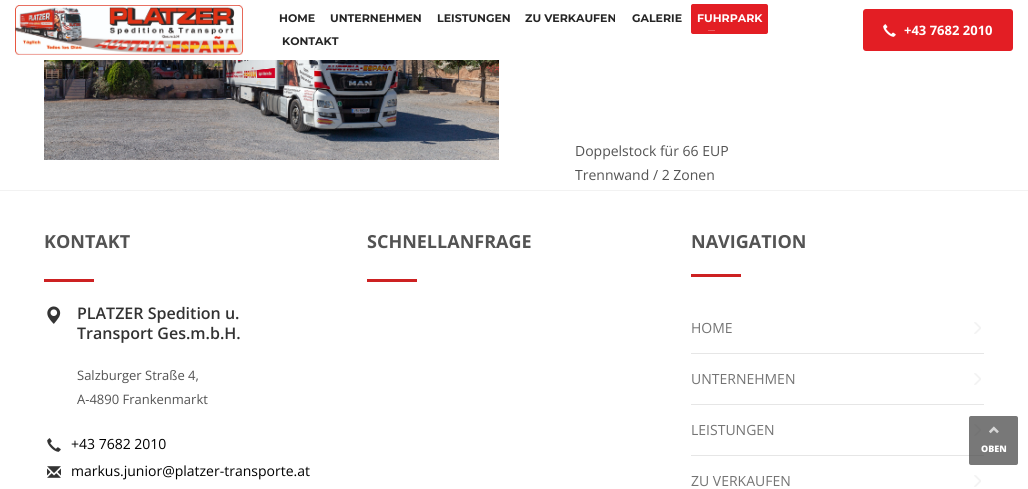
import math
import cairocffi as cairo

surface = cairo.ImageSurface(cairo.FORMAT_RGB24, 1028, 489)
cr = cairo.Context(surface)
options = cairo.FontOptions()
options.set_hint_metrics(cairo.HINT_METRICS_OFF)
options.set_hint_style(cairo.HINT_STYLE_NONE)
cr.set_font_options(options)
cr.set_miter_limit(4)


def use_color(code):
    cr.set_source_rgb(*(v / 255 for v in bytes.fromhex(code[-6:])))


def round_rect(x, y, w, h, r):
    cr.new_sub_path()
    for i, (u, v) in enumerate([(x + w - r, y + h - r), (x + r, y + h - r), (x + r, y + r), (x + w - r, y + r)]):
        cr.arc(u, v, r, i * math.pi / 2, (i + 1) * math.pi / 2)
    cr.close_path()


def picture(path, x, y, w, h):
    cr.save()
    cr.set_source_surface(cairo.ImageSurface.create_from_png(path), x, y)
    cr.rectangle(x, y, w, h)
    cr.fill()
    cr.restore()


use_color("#f2f2f2")
cr.paint()
use_color("#ffffff")
cr.rectangle(0, 0, 1028, 190)
cr.fill()
picture("img1.png", 15, 5, 228, 50)
cr.select_font_face("Montserrat", cairo.FONT_SLANT_NORMAL, cairo.FONT_WEIGHT_BOLD)
cr.set_font_size(11)
use_color("#252525")
cr.move_to(279, 22)
cr.show_text("HOME")
cr.move_to(330, 22)
cr.show_text("UNTERNEHMEN")
cr.move_to(437, 22)
cr.show_text("LEISTUNGEN")
cr.move_to(525, 22)
cr.show_text("ZU VERKAUFEN")
cr.move_to(632, 22)
cr.show_text("GALERIE")
use_color("#e31e24")
round_rect(691, 4, 77, 30, 2)
cr.fill()
use_color("#ffffff")
cr.move_to(697, 22)
cr.show_text("FUHRPARK")
use_color("#eb5d61")
cr.rectangle(708, 30, 7, 1)
cr.fill()
use_color("#252525")
cr.move_to(282, 45)
cr.show_text("KONTAKT")
use_color("#e31e24")
round_rect(863, 9, 150, 42, 3)
cr.fill()
picture("img2.png", 883, 24, 13, 13)
cr.select_font_face("Open Sans", cairo.FONT_SLANT_NORMAL, cairo.FONT_WEIGHT_BOLD)
cr.set_font_size(13)
use_color("#ffffff")
cr.move_to(904, 35)
cr.show_text("+43 7682 2010")
picture("img3.png", 44, 60, 455, 100)
cr.select_font_face("Open Sans")
cr.set_font_size(14)
use_color("#535353")
cr.move_to(575, 156)
cr.show_text("Doppelstock für 66 EUP")
cr.move_to(575, 180)
cr.show_text("Trennwand / 2 Zonen")
use_color("#ffffff")
cr.rectangle(0, 191, 1028, 298)
cr.fill()
cr.select_font_face("Open Sans", cairo.FONT_SLANT_NORMAL, cairo.FONT_WEIGHT_BOLD)
cr.set_font_size(18)
use_color("#535353")
cr.move_to(44, 248)
cr.show_text("KONTAKT")
use_color("#cd2122")
cr.rectangle(44, 279, 50, 3)
cr.fill()
picture("img4.png", 47, 306, 14, 18)
cr.select_font_face("Open Sans SemiBold")
cr.set_font_size(16)
use_color("#323232")
cr.move_to(77, 319)
cr.show_text("PLATZER Spedition u.")
cr.move_to(77, 339)
cr.show_text("Transport Ges.m.b.H.")
cr.select_font_face("Open Sans")
cr.set_font_size(13)
use_color("#535353")
cr.move_to(77, 380)
cr.show_text("Salzburger Straße 4,")
cr.move_to(77, 404)
cr.show_text("A-4890 Frankenmarkt")
picture("img5.png", 47, 438, 14, 14)
cr.set_font_size(14)
use_color("#000000")
cr.move_to(71, 449)
cr.show_text("+43 7682 2010")
picture("img6.png", 47, 466, 14, 12)
cr.move_to(71, 476)
cr.show_text("markus.junior@platzer-transporte.at")
cr.select_font_face("Open Sans", cairo.FONT_SLANT_NORMAL, cairo.FONT_WEIGHT_BOLD)
cr.set_font_size(18)
use_color("#535353")
cr.move_to(367, 248)
cr.show_text("SCHNELLANFRAGE")
use_color("#cd2122")
cr.rectangle(367, 279, 50, 3)
cr.fill()
use_color("#535353")
cr.move_to(691, 248)
cr.show_text("NAVIGATION")
use_color("#cd2122")
cr.rectangle(691, 274, 50, 3)
cr.fill()
use_color("#e6e6e6")
cr.rectangle(691, 353, 293, 1)
cr.fill()
cr.select_font_face("Open Sans")
cr.set_font_size(14)
use_color("#747474")
cr.move_to(691, 333)
cr.show_text("HOME")
picture("img7.png", 974, 322, 7, 12)
use_color("#e6e6e6")
cr.rectangle(691, 404, 293, 1)
cr.fill()
use_color("#747474")
cr.move_to(691, 384)
cr.show_text("UNTERNEHMEN")
picture("img7.png", 974, 373, 7, 12)
use_color("#e6e6e6")
cr.rectangle(691, 455, 293, 1)
cr.fill()
use_color("#747474")
cr.move_to(691, 435)
cr.show_text("LEISTUNGEN")
picture("img7.png", 974, 424, 7, 12)
cr.move_to(691, 486)
cr.show_text("ZU VERKAUFEN")
picture("img7.png", 974, 475, 7, 12)
cr.set_source_rgba(0.251, 0.251, 0.251, 0.7)
round_rect(969, 416, 49, 49, 2)
cr.fill()
picture("img8.png", 989, 426, 10, 8)
cr.select_font_face("Open Sans ExtraBold")
cr.set_font_size(9)
use_color("#ffffff")
cr.move_to(981, 452)
cr.show_text("OBEN")
surface.write_to_png("result.png")
